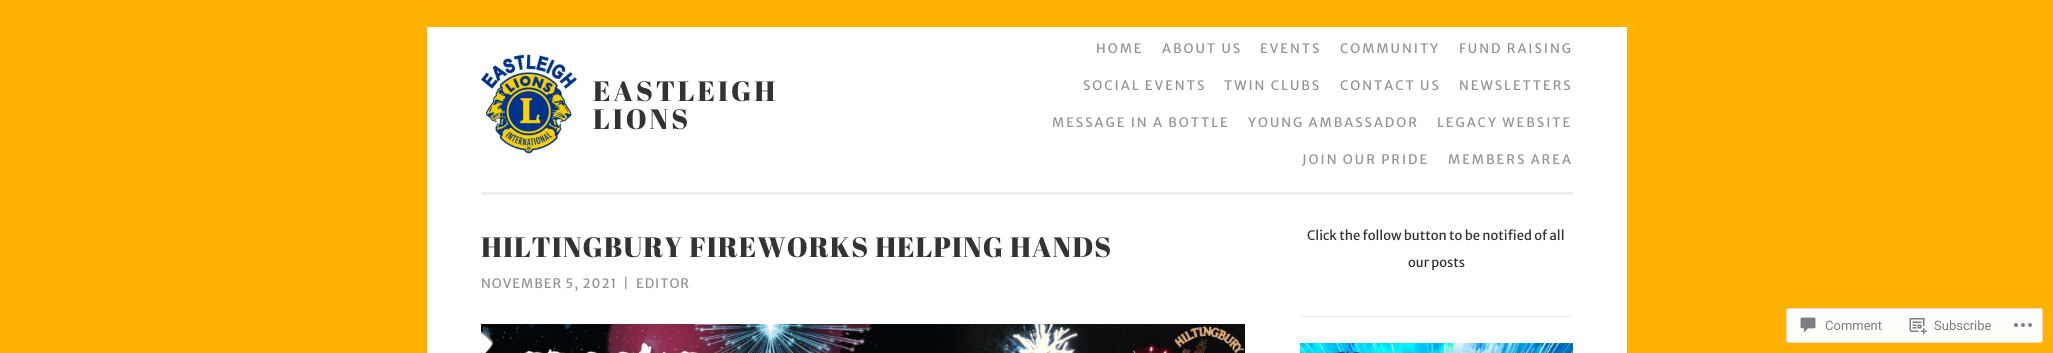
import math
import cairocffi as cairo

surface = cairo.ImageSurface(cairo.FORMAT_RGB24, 2053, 353)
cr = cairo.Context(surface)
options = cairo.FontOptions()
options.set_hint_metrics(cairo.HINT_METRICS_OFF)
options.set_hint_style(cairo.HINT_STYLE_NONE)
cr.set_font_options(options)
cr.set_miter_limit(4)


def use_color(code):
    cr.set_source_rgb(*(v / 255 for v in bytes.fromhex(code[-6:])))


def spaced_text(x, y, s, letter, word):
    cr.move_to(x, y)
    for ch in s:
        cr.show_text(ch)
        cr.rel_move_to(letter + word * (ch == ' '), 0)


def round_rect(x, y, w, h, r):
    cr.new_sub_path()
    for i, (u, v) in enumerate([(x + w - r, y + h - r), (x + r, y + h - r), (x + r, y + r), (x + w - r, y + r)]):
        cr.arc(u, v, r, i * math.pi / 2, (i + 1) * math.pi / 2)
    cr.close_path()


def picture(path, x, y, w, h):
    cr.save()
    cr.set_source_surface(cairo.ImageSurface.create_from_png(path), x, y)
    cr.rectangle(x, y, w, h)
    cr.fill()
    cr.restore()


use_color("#ffb300")
cr.paint()
use_color("#ffffff")
cr.rectangle(427, 27, 1200, 326)
cr.fill()
use_color("#eeeeee")
cr.rectangle(481, 192, 1092, 3)
cr.fill()
picture("img1.png", 481, 54, 96, 100)
cr.select_font_face("Abril Fatface")
cr.set_font_size(28)
use_color("#333333")
spaced_text(593, 101, "EASTLEIGH", 3, 0)
spaced_text(593, 129, "LIONS", 3, 0)
cr.select_font_face("Merriweather Sans")
cr.set_font_size(13)
use_color("#939393")
spaced_text(1096, 53, "HOME", 2, 0)
spaced_text(1162, 53, "ABOUT US", 2, 0)
spaced_text(1260, 53, "EVENTS", 2, 0)
spaced_text(1340, 53, "COMMUNITY", 2, 0)
spaced_text(1459, 53, "FUND RAISING", 2, 0)
spaced_text(1083, 90, "SOCIAL EVENTS", 2, 0)
spaced_text(1224, 90, "TWIN CLUBS", 2, 0)
spaced_text(1340, 90, "CONTACT US", 2, 0)
spaced_text(1459, 90, "NEWSLETTERS", 2, 0)
spaced_text(1052, 127, "MESSAGE IN A BOTTLE", 2, 0)
spaced_text(1248, 127, "YOUNG AMBASSADOR", 2, 0)
spaced_text(1437, 127, "LEGACY WEBSITE", 2, 0)
spaced_text(1302, 164, "JOIN OUR PRIDE", 2, 0)
spaced_text(1448, 164, "MEMBERS AREA", 2, 0)
cr.select_font_face("Abril Fatface")
cr.set_font_size(28)
use_color("#333333")
spaced_text(481, 257, "HILTINGBURY FIREWORKS HELPING HANDS", 1, 0)
cr.select_font_face("Merriweather Sans")
cr.set_font_size(13)
use_color("#939393")
spaced_text(481, 288, "NOVEMBER 5, 2021", 1, 0)
use_color("#999999")
spaced_text(623, 288, "|", 1, 0)
use_color("#939393")
spaced_text(636, 288, "EDITOR", 1, 0)
picture("img2.png", 481, 324, 764, 29)
use_color("#eeeeee")
cr.rectangle(1300, 316, 273, 1)
cr.fill()
use_color("#333333")
cr.move_to(1307, 240)
cr.show_text("Click the follow button to be notified of all")
cr.move_to(1408, 267)
cr.show_text("our posts")
picture("img3.png", 1300, 343, 273, 10)
use_color("#fffdfa")
round_rect(1786.5, 308.5, 256, 34, 2.5)
cr.fill_preserve()
use_color("#dddbda")
cr.set_line_width(1)
cr.stroke()
picture("img4.png", 1800, 317, 16, 16)
cr.select_font_face("Roboto")
use_color("#7b7d7f")
cr.move_to(1825, 330)
cr.show_text("Comment")
picture("img5.png", 1909, 318, 18, 17)
cr.move_to(1934, 330)
cr.show_text("Subscribe")
picture("img6.png", 2014, 323, 18, 4)
surface.write_to_png("result.png")
